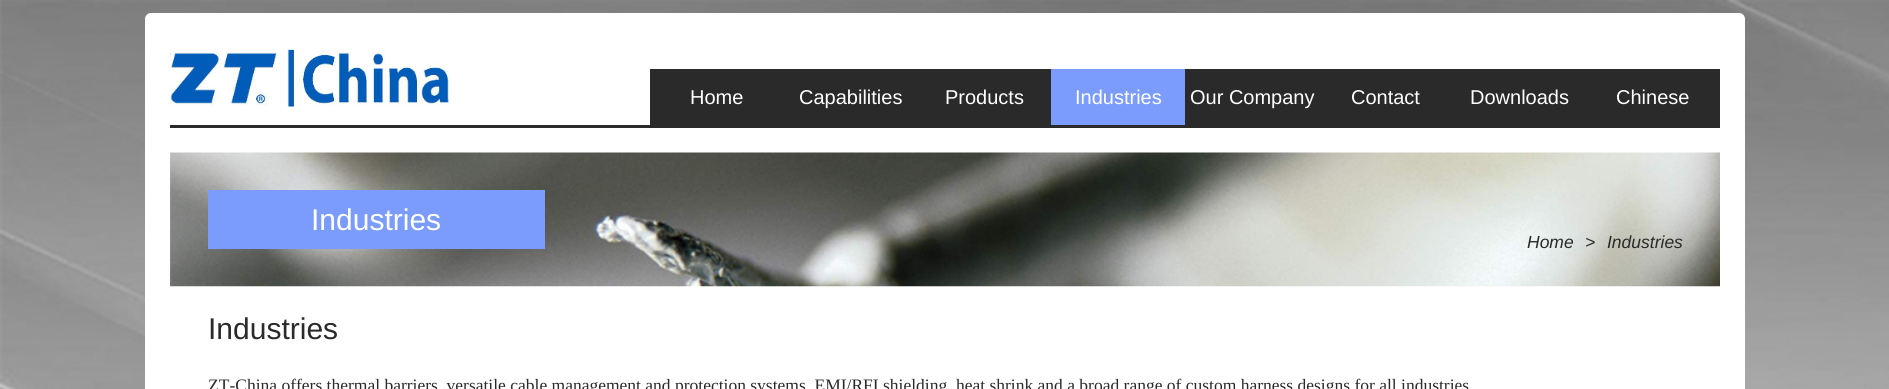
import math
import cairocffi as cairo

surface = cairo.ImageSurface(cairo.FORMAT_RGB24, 1889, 389)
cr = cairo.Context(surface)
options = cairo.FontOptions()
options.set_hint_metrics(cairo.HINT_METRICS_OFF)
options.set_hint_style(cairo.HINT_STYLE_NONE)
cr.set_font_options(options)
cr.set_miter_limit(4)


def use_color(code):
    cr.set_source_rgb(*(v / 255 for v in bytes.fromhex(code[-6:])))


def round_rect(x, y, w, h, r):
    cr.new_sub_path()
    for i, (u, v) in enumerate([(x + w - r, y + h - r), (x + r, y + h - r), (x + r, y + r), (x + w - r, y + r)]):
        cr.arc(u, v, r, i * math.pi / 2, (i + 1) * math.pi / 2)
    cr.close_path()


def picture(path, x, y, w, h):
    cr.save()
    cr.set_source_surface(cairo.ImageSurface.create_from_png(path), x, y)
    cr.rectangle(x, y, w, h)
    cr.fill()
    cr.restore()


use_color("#ffffff")
cr.paint()
picture("img1.png", 0, 0, 1889, 389)
use_color("#ffffff")
round_rect(145, 13, 1600, 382, 6)
cr.fill()
use_color("#2a2a2a")
cr.rectangle(170, 125, 1550, 3)
cr.fill()
picture("img2.png", 170, 49, 280, 58)
cr.rectangle(650, 69, 401, 56)
cr.fill()
cr.select_font_face("Liberation Sans")
cr.set_font_size(20)
use_color("#ffffff")
cr.move_to(690, 104)
cr.show_text("Home")
cr.move_to(799, 104)
cr.show_text("Capabilities")
cr.move_to(945, 104)
cr.show_text("Products")
use_color("#7b9cfc")
cr.rectangle(1051, 69, 134, 56)
cr.fill()
use_color("#ffffff")
cr.move_to(1075, 104)
cr.show_text("Industries")
use_color("#2a2a2a")
cr.rectangle(1185, 69, 535, 56)
cr.fill()
use_color("#ffffff")
cr.move_to(1190, 104)
cr.show_text("Our Company")
cr.move_to(1351, 104)
cr.show_text("Contact")
cr.move_to(1470, 104)
cr.show_text("Downloads")
cr.move_to(1616, 104)
cr.show_text("Chinese")
picture("img3.png", 170, 152, 1550, 135)
use_color("#7b9cfc")
cr.rectangle(208, 190, 337, 59)
cr.fill()
cr.set_font_size(30)
use_color("#ffffff")
cr.move_to(311, 230)
cr.show_text("Industries")
cr.select_font_face("Liberation Sans", cairo.FONT_SLANT_ITALIC)
cr.set_font_size(17.5)
use_color("#2a2a2a")
cr.move_to(1527, 248)
cr.show_text("Home")
cr.move_to(1585, 248)
cr.show_text(">")
cr.move_to(1607, 248)
cr.show_text("Industries")
cr.select_font_face("Liberation Sans")
cr.set_font_size(30)
cr.move_to(208, 339)
cr.show_text("Industries")
cr.select_font_face("Liberation Serif")
cr.set_font_size(17.5)
cr.move_to(208, 391)
cr.show_text("ZT-China offers thermal barriers, versatile cable management and protection systems, EMI/RFI shielding, heat shrink and a broad range of custom harness designs for all industries")
surface.write_to_png("result.png")
